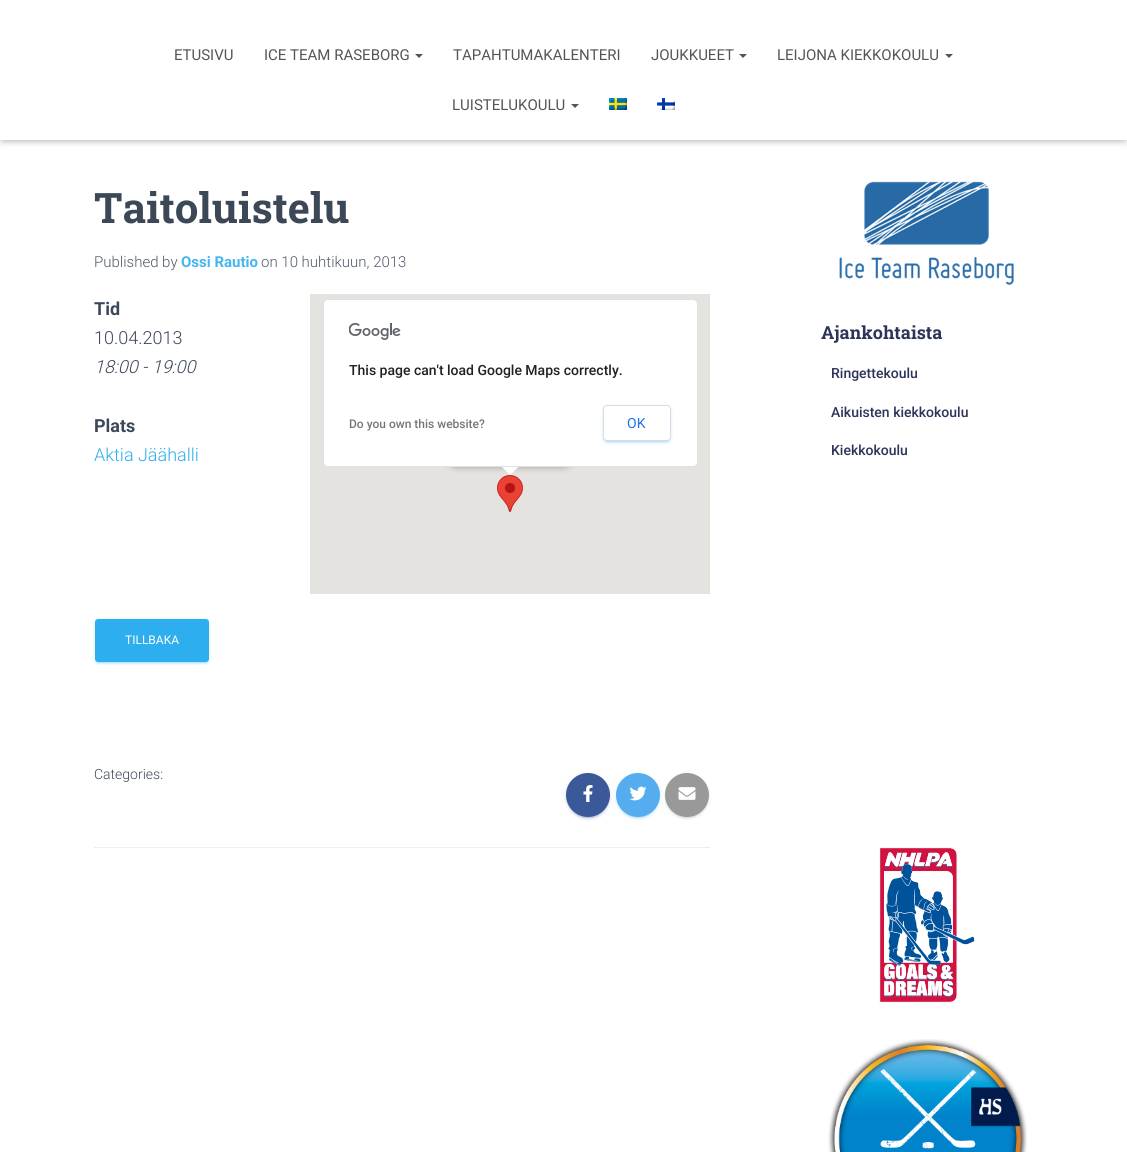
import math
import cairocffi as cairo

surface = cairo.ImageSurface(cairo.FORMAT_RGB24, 1127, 1152)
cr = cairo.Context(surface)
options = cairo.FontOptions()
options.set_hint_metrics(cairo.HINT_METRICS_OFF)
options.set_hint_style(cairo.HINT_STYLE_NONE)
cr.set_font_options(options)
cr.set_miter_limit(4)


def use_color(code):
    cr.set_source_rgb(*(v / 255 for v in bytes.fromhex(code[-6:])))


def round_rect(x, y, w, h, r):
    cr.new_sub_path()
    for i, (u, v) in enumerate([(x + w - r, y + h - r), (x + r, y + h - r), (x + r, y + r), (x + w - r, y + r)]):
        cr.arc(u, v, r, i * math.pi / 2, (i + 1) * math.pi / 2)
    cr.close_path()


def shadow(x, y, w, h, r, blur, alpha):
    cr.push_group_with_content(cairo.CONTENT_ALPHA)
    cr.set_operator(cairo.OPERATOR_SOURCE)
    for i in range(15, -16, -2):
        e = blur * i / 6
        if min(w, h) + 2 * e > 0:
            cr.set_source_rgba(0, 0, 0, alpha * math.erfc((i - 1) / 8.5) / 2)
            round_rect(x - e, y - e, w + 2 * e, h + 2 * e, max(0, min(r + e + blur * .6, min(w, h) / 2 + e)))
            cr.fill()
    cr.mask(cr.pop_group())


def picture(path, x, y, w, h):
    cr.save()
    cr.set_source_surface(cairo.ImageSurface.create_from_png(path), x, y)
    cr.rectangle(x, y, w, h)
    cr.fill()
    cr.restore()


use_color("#ffffff")
cr.paint()
use_color("#000000")
shadow(2, 6, 1123, 136, 0, 2.5, 0.1)
shadow(0, 1, 1127, 140, 0, 5, 0.12)
shadow(6, 7, 1115, 128, 0, 5, 0.42)
use_color("#ffffff")
cr.rectangle(0, 0, 1127, 140)
cr.fill()
cr.select_font_face("Roboto")
cr.set_font_size(15)
use_color("#555555")
cr.move_to(174, 60)
cr.show_text("ETUSIVU")
cr.move_to(264, 60)
cr.show_text("ICE TEAM RASEBORG")
cr.new_path()
cr.move_to(415, 54)
cr.line_to(423, 54)
cr.line_to(419, 58)
cr.close_path()
cr.fill()
cr.move_to(453, 60)
cr.show_text("TAPAHTUMAKALENTERI")
cr.move_to(651, 60)
cr.show_text("JOUKKUEET")
cr.new_path()
cr.move_to(739, 54)
cr.line_to(747, 54)
cr.line_to(743, 58)
cr.close_path()
cr.fill()
cr.move_to(777, 60)
cr.show_text("LEIJONA KIEKKOKOULU")
cr.new_path()
cr.move_to(945, 54)
cr.line_to(953, 54)
cr.line_to(949, 58)
cr.close_path()
cr.fill()
cr.move_to(452, 110)
cr.show_text("LUISTELUKOULU")
cr.new_path()
cr.move_to(571, 104)
cr.line_to(579, 104)
cr.line_to(575, 108)
cr.close_path()
cr.fill()
picture("img1.png", 609, 98, 18, 12)
picture("img2.png", 657, 98, 18, 12)
cr.select_font_face("Roboto Slab", cairo.FONT_SLANT_NORMAL, cairo.FONT_WEIGHT_BOLD)
cr.set_font_size(42)
use_color("#3c4858")
cr.move_to(94, 223)
cr.show_text("Taitoluistelu")
cr.select_font_face("Roboto Light")
cr.set_font_size(15)
use_color("#505a69")
cr.move_to(94, 267)
cr.show_text("Published by")
cr.select_font_face("Roboto", cairo.FONT_SLANT_NORMAL, cairo.FONT_WEIGHT_BOLD)
use_color("#42b6f1")
cr.move_to(181, 267)
cr.show_text("Ossi Rautio")
cr.select_font_face("Roboto Light")
use_color("#505a69")
cr.move_to(261, 267)
cr.show_text("on 10 huhtikuun, 2013")
cr.select_font_face("Roboto", cairo.FONT_SLANT_NORMAL, cairo.FONT_WEIGHT_BOLD)
cr.set_font_size(18)
use_color("#3c4858")
cr.move_to(94, 315)
cr.show_text("Tid")
cr.select_font_face("Roboto Light")
cr.move_to(94, 344)
cr.show_text("10.04.2013")
cr.select_font_face("Roboto Light", cairo.FONT_SLANT_ITALIC)
cr.move_to(94, 373)
cr.show_text("18:00 - 19:00")
use_color("#e5e3df")
cr.rectangle(310, 294, 400, 300)
cr.fill()
picture("img3.png", 497, 475, 26, 37)
use_color("#000000")
shadow(447, 355, 126, 112, 9, 3.5, 0.3)
use_color("#ffffff")
cr.new_path()
cr.move_to(498, 463)
cr.line_to(510, 475)
cr.line_to(522.5, 463)
cr.close_path()
cr.fill()
round_rect(323, 299, 375, 168, 5)
cr.fill()
round_rect(323.5, 299.5, 374, 167, 4.5)
cr.set_source_rgba(0, 0, 0, 0.12)
cr.set_line_width(1)
cr.stroke()
picture("img4.png", 349, 323, 52, 17)
cr.select_font_face("Roboto Medium")
cr.set_font_size(14)
use_color("#212121")
cr.move_to(349, 375)
cr.show_text("This page can't load Google Maps correctly.")
cr.set_font_size(12)
use_color("#757575")
cr.move_to(349, 428)
cr.show_text("Do you own this website?")
use_color("#2daeef")
shadow(603, 406, 68, 36, 4, 2.5, 0.12)
shadow(605, 410, 64, 32, 2, 0.5, 0.2)
shadow(603, 407, 68, 36, 4, 1, 0.14)
use_color("#ffffff")
round_rect(603.5, 405.5, 67, 35, 3.5)
cr.fill_preserve()
use_color("#dadce0")
cr.stroke()
cr.select_font_face("Roboto")
cr.set_font_size(14)
use_color("#1a73e8")
cr.move_to(627, 428)
cr.show_text("OK")
cr.select_font_face("Roboto", cairo.FONT_SLANT_NORMAL, cairo.FONT_WEIGHT_BOLD)
cr.set_font_size(18)
use_color("#3c4858")
cr.move_to(94, 432)
cr.show_text("Plats")
cr.select_font_face("Roboto Light")
use_color("#2daeef")
cr.move_to(94, 461)
cr.show_text("Aktia Jäähalli")
use_color("#2daeef")
shadow(95, 620, 114, 43, 3, 2.5, 0.12)
shadow(97, 624, 110, 39, 1, 0.5, 0.2)
shadow(95, 621, 114, 43, 3, 1, 0.14)
use_color("#2daeef")
round_rect(95, 619, 114, 43, 3)
cr.fill()
cr.select_font_face("Roboto")
cr.set_font_size(12)
use_color("#ffffff")
cr.move_to(125, 644)
cr.show_text("TILLBAKA")
cr.select_font_face("Roboto Light")
cr.set_font_size(14)
use_color("#3c4858")
cr.move_to(94, 779)
cr.show_text("Categories:")
use_color("#3b5998")
shadow(566, 774, 44, 44, 22, 2.5, 0.12)
shadow(568, 778, 40, 40, 20, 0.5, 0.2)
shadow(566, 775, 44, 44, 22, 1, 0.14)
use_color("#3b5998")
cr.arc(588, 795, 22, 0, 2 * math.pi)
cr.fill()
picture("img5.png", 583, 785, 10, 17)
use_color("#55acee")
shadow(616, 774, 44, 44, 22, 2.5, 0.12)
shadow(618, 778, 40, 40, 20, 0.5, 0.2)
shadow(616, 775, 44, 44, 22, 1, 0.14)
use_color("#55acee")
cr.arc(638, 795, 22, 0, 2 * math.pi)
cr.fill()
picture("img6.png", 629, 786, 18, 15)
use_color("#999999")
shadow(665, 774, 44, 44, 22, 2.5, 0.12)
shadow(667, 778, 40, 40, 20, 0.5, 0.2)
shadow(665, 775, 44, 44, 22, 1, 0.14)
use_color("#999999")
cr.arc(687, 795, 22, 0, 2 * math.pi)
cr.fill()
picture("img7.png", 678, 787, 18, 13)
use_color("#eeeeee")
cr.rectangle(94, 847, 616, 1)
cr.fill()
picture("img8.png", 839, 181, 175, 104)
cr.select_font_face("Roboto Slab", cairo.FONT_SLANT_NORMAL, cairo.FONT_WEIGHT_BOLD)
cr.set_font_size(18)
use_color("#2d3359")
cr.move_to(821, 339)
cr.show_text("Ajankohtaista")
cr.select_font_face("Roboto Medium")
cr.set_font_size(14)
cr.move_to(831, 378)
cr.show_text("Ringettekoulu")
cr.move_to(831, 417)
cr.show_text("Aikuisten kiekkokoulu")
cr.move_to(831, 455)
cr.show_text("Kiekkokoulu")
picture("img9.png", 879, 847, 96, 156)
picture("img10.png", 828, 1039, 199, 113)
surface.write_to_png("result.png")
